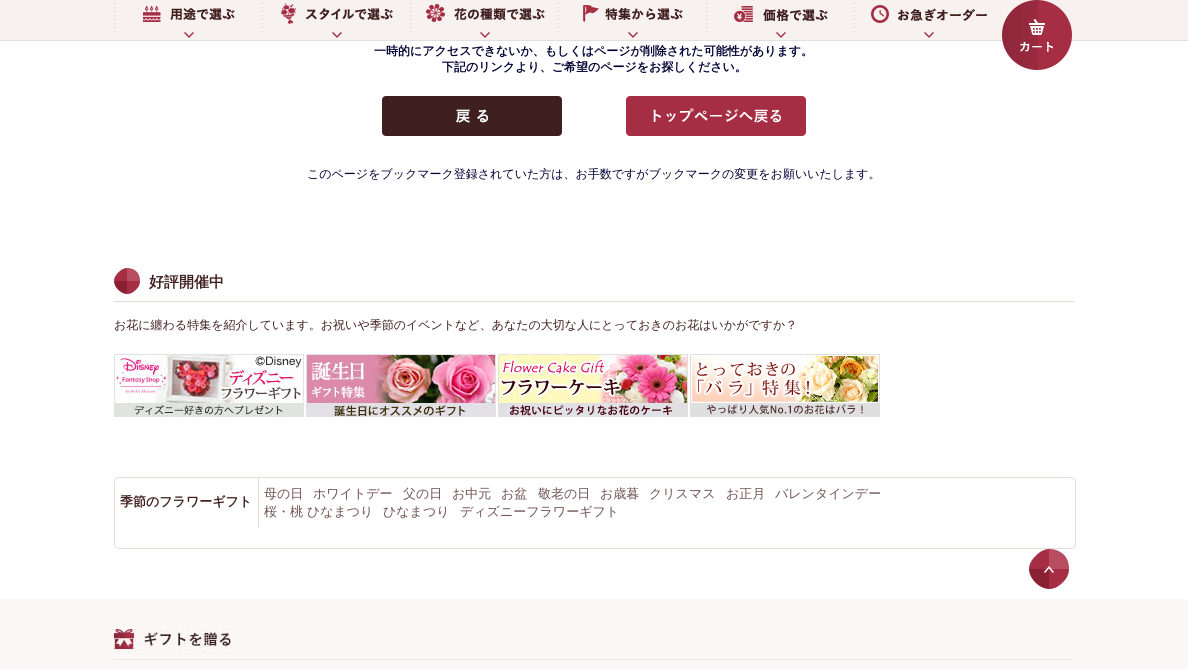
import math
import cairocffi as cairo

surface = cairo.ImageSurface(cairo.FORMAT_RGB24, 1188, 670)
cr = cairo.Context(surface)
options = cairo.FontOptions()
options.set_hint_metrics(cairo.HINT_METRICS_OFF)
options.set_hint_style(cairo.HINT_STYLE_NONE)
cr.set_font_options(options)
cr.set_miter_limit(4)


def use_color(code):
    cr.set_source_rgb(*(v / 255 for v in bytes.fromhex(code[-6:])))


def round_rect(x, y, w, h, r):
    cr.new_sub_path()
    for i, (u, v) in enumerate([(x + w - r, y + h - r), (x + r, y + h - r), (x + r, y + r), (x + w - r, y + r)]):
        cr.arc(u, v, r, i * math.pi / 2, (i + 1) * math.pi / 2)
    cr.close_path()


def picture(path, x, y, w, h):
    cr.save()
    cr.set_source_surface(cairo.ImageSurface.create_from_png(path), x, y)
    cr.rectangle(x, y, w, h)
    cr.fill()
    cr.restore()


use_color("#ffffff")
cr.paint()
use_color("#e0e0e0")
cr.rectangle(0, 40, 1188, 1)
cr.fill()
use_color("#f7f2f0")
cr.rectangle(0, 0, 1188, 40)
cr.fill()
picture("img1.png", 114, 3, 121, 35)
picture("img2.png", 262, 3, 131, 35)
picture("img3.png", 410, 3, 135, 35)
picture("img4.png", 558, 3, 125, 35)
picture("img5.png", 706, 3, 122, 35)
picture("img6.png", 854, 3, 133, 35)
picture("img7.png", 1002, 0, 70, 70)
cr.select_font_face("WenQuanYi Zen Hei", cairo.FONT_SLANT_NORMAL, cairo.FONT_WEIGHT_BOLD)
cr.set_font_size(12)
use_color("#000033")
cr.move_to(374, 55)
cr.show_text("一時的にアクセスできないか、もしくはページが削除された可能性があります。")
cr.move_to(442, 71)
cr.show_text("下記のリンクより、ご希望のページをお探しください。")
picture("img8.png", 382, 96, 180, 40)
picture("img9.png", 626, 96, 180, 40)
cr.select_font_face("WenQuanYi Zen Hei Medium")
cr.move_to(307, 178)
cr.show_text("このページをブックマーク登録されていた方は、お手数ですがブックマークの変更をお願いいたします。")
picture("img10.png", 114, 268, 26, 26)
use_color("#e5ddda")
cr.rectangle(114, 301, 960, 1)
cr.fill()
cr.select_font_face("WenQuanYi Zen Hei", cairo.FONT_SLANT_NORMAL, cairo.FONT_WEIGHT_BOLD)
cr.set_font_size(15)
use_color("#401f1f")
cr.move_to(149, 287)
cr.show_text("好評開催中")
cr.select_font_face("WenQuanYi Zen Hei Medium")
cr.set_font_size(12)
cr.move_to(114, 329)
cr.show_text("お花に纏わる特集を紹介しています。お祝いや季節のイベントなど、あなたの大切な人にとっておきのお花はいかがですか？")
picture("img11.png", 114, 354, 190, 63)
picture("img12.png", 306, 354, 190, 63)
picture("img13.png", 498, 354, 190, 63)
picture("img14.png", 690, 354, 190, 63)
round_rect(114.5, 477.5, 961, 71, 4.5)
use_color("#e5ddda")
cr.set_line_width(1)
cr.stroke()
cr.rectangle(258, 478, 1, 50)
cr.fill()
cr.select_font_face("WenQuanYi Zen Hei", cairo.FONT_SLANT_NORMAL, cairo.FONT_WEIGHT_BOLD)
cr.set_font_size(13)
use_color("#401f1f")
cr.move_to(120, 506)
cr.show_text("季節のフラワーギフト")
cr.select_font_face("WenQuanYi Zen Hei Medium")
use_color("#705252")
cr.move_to(264, 498)
cr.show_text("母の日")
cr.move_to(313, 498)
cr.show_text("ホワイトデー")
cr.move_to(403, 498)
cr.show_text("父の日")
cr.move_to(452, 498)
cr.show_text("お中元")
cr.move_to(501, 498)
cr.show_text("お盆")
cr.move_to(538, 498)
cr.show_text("敬老の日")
cr.move_to(600, 498)
cr.show_text("お歳暮")
cr.move_to(649, 498)
cr.show_text("クリスマス")
cr.move_to(726, 498)
cr.show_text("お正月")
cr.move_to(775, 498)
cr.show_text("バレンタインデー")
cr.move_to(264, 516)
cr.show_text("桜・桃 ひなまつり")
cr.move_to(383, 516)
cr.show_text("ひなまつり")
cr.move_to(460, 516)
cr.show_text("ディズニーフラワーギフト")
use_color("#fbf8f7")
cr.rectangle(0, 599, 1188, 71)
cr.fill()
picture("img15.png", 1029, 549, 40, 40)
picture("img16.png", 114, 629, 960, 31)
surface.write_to_png("result.png")
